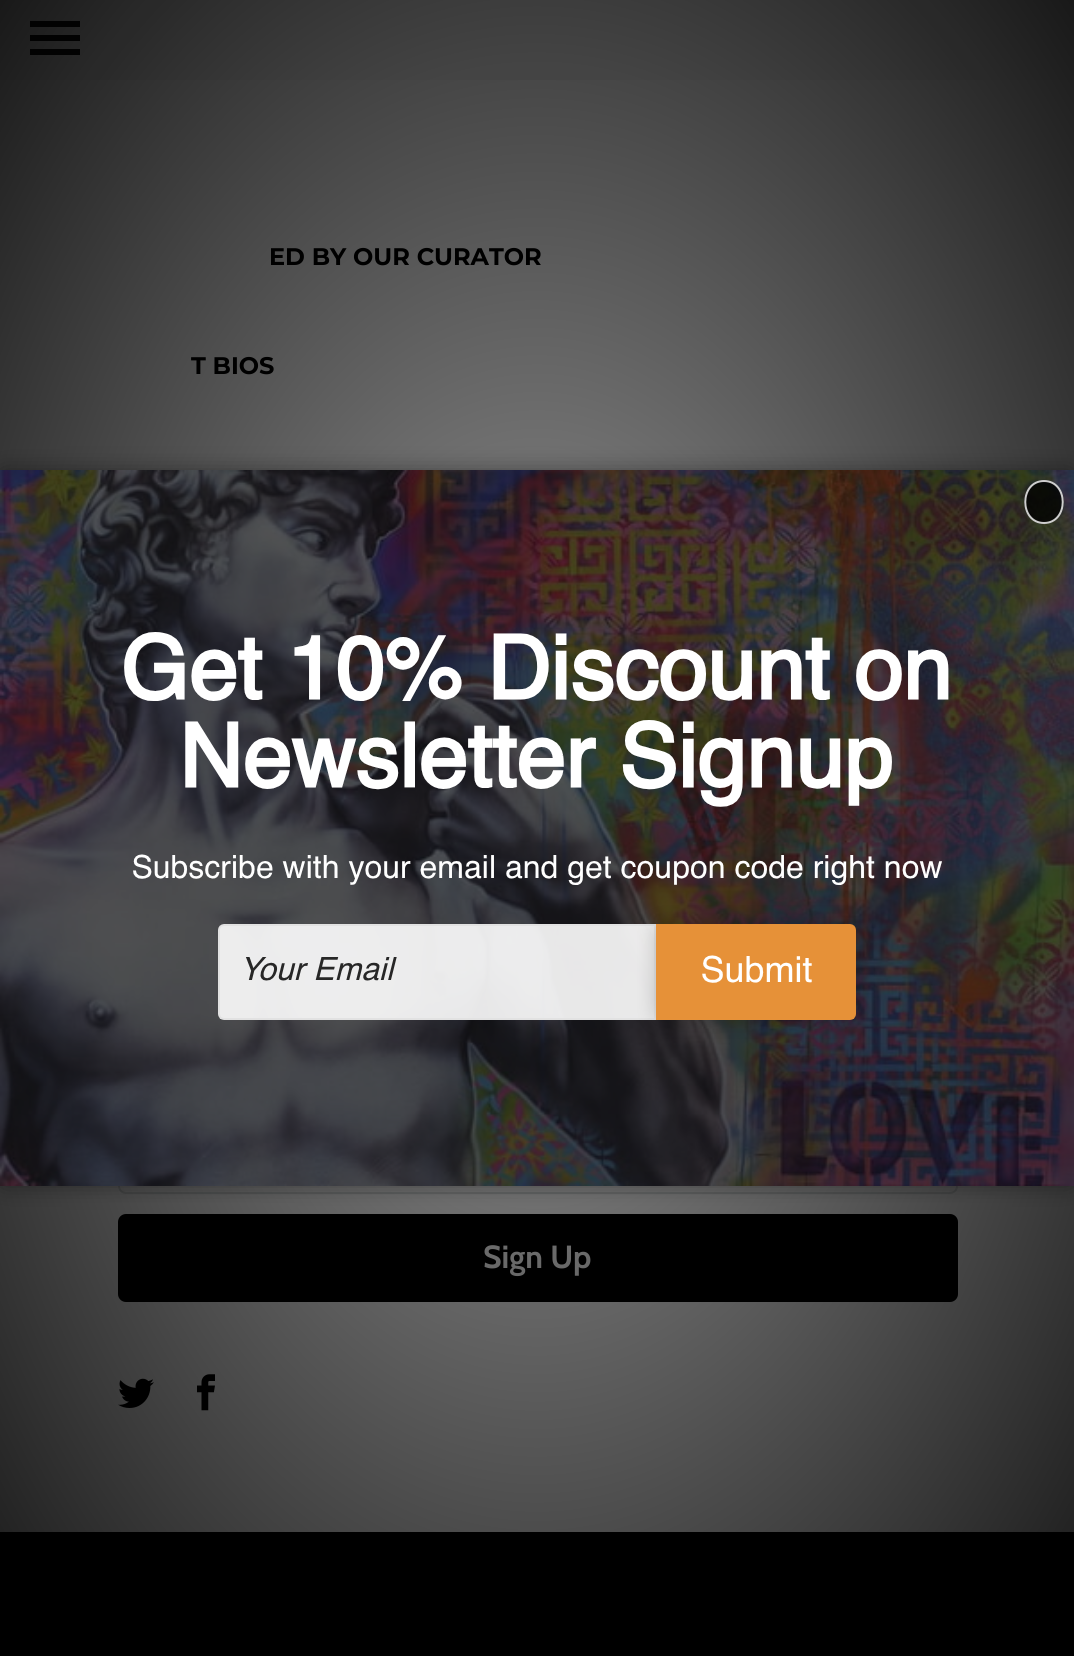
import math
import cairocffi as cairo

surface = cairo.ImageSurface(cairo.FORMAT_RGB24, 1074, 1656)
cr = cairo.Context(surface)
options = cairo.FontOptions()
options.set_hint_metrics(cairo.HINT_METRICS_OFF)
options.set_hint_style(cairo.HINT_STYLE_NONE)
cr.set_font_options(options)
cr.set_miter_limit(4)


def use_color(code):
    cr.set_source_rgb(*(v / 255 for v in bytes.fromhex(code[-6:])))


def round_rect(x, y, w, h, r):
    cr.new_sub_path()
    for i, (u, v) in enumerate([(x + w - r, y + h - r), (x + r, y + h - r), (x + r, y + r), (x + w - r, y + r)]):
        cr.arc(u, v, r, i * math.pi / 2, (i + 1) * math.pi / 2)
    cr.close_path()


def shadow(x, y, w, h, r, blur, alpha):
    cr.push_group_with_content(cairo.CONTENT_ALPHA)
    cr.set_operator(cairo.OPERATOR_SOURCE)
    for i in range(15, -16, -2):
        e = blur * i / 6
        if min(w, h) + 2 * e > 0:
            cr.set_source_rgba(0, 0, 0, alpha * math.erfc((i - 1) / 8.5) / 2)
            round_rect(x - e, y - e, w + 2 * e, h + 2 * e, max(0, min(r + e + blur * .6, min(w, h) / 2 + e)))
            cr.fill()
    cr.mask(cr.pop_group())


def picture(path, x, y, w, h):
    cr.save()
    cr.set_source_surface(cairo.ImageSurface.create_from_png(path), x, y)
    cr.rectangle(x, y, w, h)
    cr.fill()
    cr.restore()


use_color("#ffffff")
cr.paint()
use_color("#f6f6f6")
cr.rectangle(0, 0, 1074, 80)
cr.fill()
use_color("#0d0d0d")
cr.new_path()
cr.move_to(30, 55)
cr.line_to(80, 55)
cr.line_to(80, 49)
cr.line_to(30, 49)
cr.close_path()
cr.move_to(30, 41)
cr.line_to(80, 41)
cr.line_to(80, 35)
cr.line_to(30, 35)
cr.close_path()
cr.move_to(30, 21)
cr.line_to(30, 27)
cr.line_to(80, 27)
cr.line_to(80, 21)
cr.close_path()
cr.fill()
cr.select_font_face("Montserrat", cairo.FONT_SLANT_NORMAL, cairo.FONT_WEIGHT_BOLD)
cr.set_font_size(24)
use_color("#000000")
cr.move_to(269, 265)
cr.show_text("ED BY OUR CURATOR")
cr.move_to(191, 374)
cr.show_text("T BIOS")
round_rect(119, 1107, 838, 86, 7)
use_color("#dce0e0")
cr.stroke()
use_color("#000000")
round_rect(118, 1214, 840, 88, 8)
cr.fill()
cr.set_source_rgba(0, 0, 0, 0.1)
cr.new_path()
cr.move_to(118, 1288)
cr.line_to(118, 1294)
cr.curve_to(118, 1298, 122, 1302, 126, 1302)
cr.line_to(950, 1302)
cr.curve_to(954, 1302, 958, 1298, 958, 1294)
cr.line_to(958, 1288)
cr.curve_to(958, 1292, 954, 1296, 950, 1296)
cr.line_to(126, 1296)
cr.curve_to(122, 1296, 118, 1292, 118, 1288)
cr.close_path()
cr.fill()
cr.select_font_face("Cabin", cairo.FONT_SLANT_NORMAL, cairo.FONT_WEIGHT_BOLD)
cr.set_font_size(32)
use_color("#ffffff")
cr.move_to(483, 1268)
cr.show_text("Sign Up")
picture("img2.png", 118, 1378, 36, 30)
picture("img3.png", 197, 1374, 18, 37)
gradient = cairo.RadialGradient(0, 0, 0, 0, 0, 1)
gradient.set_matrix(cairo.Matrix(1 / 759, 0, 0, 1 / 1171, -1 * 537 / 759, -1 * 828 / 1171))
gradient.add_color_stop_rgba(0, 0, 0, 0, 0.4)
gradient.add_color_stop_rgba(1, 0, 0, 0, 0.9)
cr.set_source(gradient)
cr.rectangle(0, 0, 1074, 1532)
cr.fill()
use_color("#000000")
shadow(0, 470, 1074, 716, 4, 11, 0.4)
picture("img1.png", 0, 470, 1074, 716)
cr.set_source_rgba(0, 0, 0, 0.8)
cr.new_path()
cr.move_to(1044, 480)
cr.curve_to(1055, 480, 1064, 490, 1064, 502)
cr.curve_to(1064, 514, 1055, 524, 1044, 524)
cr.curve_to(1033, 524, 1024, 514, 1024, 502)
cr.curve_to(1024, 490, 1033, 480, 1044, 480)
cr.close_path()
cr.fill()
cr.new_path()
cr.move_to(1044, 481)
cr.curve_to(1069, 481, 1069, 523, 1044, 523)
cr.curve_to(1019, 523, 1019, 481, 1044, 481)
cr.close_path()
cr.set_source_rgba(1, 1, 1, 0.8)
cr.stroke()
use_color("#000000")
cr.rectangle(0, 1532, 1074, 124)
cr.fill()
surface.write_to_png("result.png")
